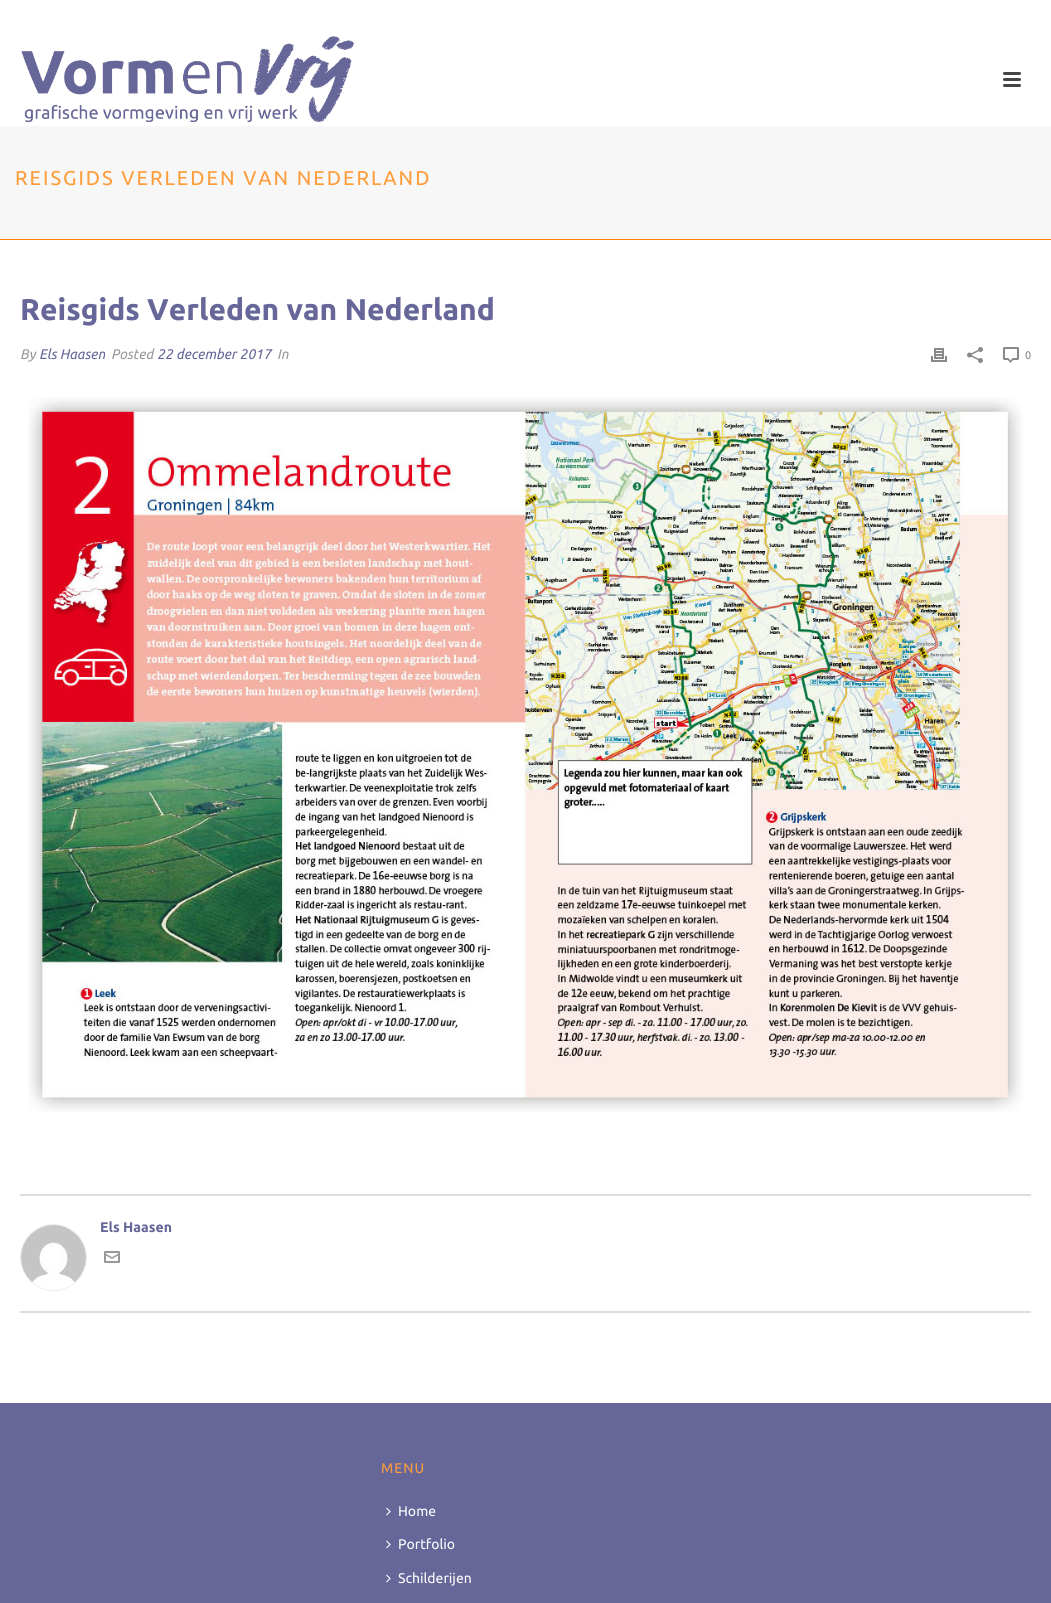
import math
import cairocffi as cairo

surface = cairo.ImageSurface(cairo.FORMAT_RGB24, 1051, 1603)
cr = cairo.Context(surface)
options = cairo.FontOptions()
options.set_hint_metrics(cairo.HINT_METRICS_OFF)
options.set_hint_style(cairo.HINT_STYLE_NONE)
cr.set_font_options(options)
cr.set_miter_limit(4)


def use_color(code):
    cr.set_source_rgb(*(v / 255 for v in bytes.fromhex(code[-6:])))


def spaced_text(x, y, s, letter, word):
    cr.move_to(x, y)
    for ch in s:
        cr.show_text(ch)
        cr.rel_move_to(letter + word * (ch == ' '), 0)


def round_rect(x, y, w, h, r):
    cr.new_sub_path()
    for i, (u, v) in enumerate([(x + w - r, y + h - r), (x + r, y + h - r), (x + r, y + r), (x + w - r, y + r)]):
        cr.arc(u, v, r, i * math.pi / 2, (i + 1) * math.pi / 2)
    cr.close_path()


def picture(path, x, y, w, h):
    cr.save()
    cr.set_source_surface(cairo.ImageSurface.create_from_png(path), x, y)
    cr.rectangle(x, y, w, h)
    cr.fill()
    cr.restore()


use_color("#ffffff")
cr.paint()
use_color("#f7f7f7")
cr.rectangle(0, 126, 1051, 113)
cr.fill()
use_color("#ff7f00")
cr.rectangle(0, 239, 1051, 1)
cr.fill()
picture("img1.png", 21, 36, 334, 87)
use_color("#444444")
round_rect(1003, 72, 18, 3, 1.5)
cr.fill()
round_rect(1003, 78, 18, 3, 1.5)
cr.fill()
round_rect(1003, 84, 18, 3, 1.5)
cr.fill()
cr.select_font_face("Ubuntu")
cr.set_font_size(20)
use_color("#ff9c3a")
spaced_text(15, 185, "REISGIDS VERLEDEN VAN NEDERLAND", 2, 0)
cr.select_font_face("Ubuntu", cairo.FONT_SLANT_NORMAL, cairo.FONT_WEIGHT_BOLD)
cr.set_font_size(30)
use_color("#666699")
cr.move_to(20, 320)
cr.show_text("Reisgids Verleden van Nederland")
cr.select_font_face("Ubuntu", cairo.FONT_SLANT_ITALIC)
cr.set_font_size(14)
use_color("#999999")
cr.move_to(20, 359)
cr.show_text("By")
use_color("#666699")
cr.move_to(39, 359)
cr.show_text("Els Haasen")
use_color("#999999")
cr.move_to(111, 359)
cr.show_text("Posted")
use_color("#666699")
cr.move_to(157, 359)
cr.show_text("22 december 2017")
use_color("#999999")
cr.move_to(277, 359)
cr.show_text("In")
picture("img2.png", 931, 348, 16, 14)
picture("img3.png", 967, 347, 16, 16)
picture("img4.png", 1003, 347, 16, 16)
cr.select_font_face("Ubuntu")
cr.set_font_size(11)
use_color("#898989")
cr.move_to(1025, 359)
cr.show_text("0")
picture("img5.png", 28, 397, 995, 715)
use_color("#dddddd")
cr.rectangle(20, 1194, 1011, 2)
cr.fill()
cr.rectangle(20, 1311, 1011, 2)
cr.fill()
cr.arc(53.5, 1257.5, 33, 0, 2 * math.pi)
use_color("#eeeeee")
cr.set_line_width(1)
cr.stroke()
picture("img6.png", 21, 1225, 65, 57)
cr.select_font_face("Ubuntu", cairo.FONT_SLANT_NORMAL, cairo.FONT_WEIGHT_BOLD)
cr.set_font_size(14)
use_color("#666699")
cr.move_to(100, 1232)
cr.show_text("Els Haasen")
picture("img7.png", 104, 1251, 16, 12)
cr.rectangle(0, 1403, 1051, 200)
cr.fill()
cr.select_font_face("Ubuntu")
use_color("#ff9c3a")
spaced_text(381, 1473, "MENU", 1, 0)
picture("img8.png", 386, 1507, 5, 9)
use_color("#ffffff")
cr.move_to(398, 1516)
cr.show_text("Home")
picture("img8.png", 386, 1540, 5, 9)
cr.move_to(398, 1549)
cr.show_text("Portfolio")
picture("img8.png", 386, 1574, 5, 9)
cr.move_to(398, 1583)
cr.show_text("Schilderijen")
surface.write_to_png("result.png")
